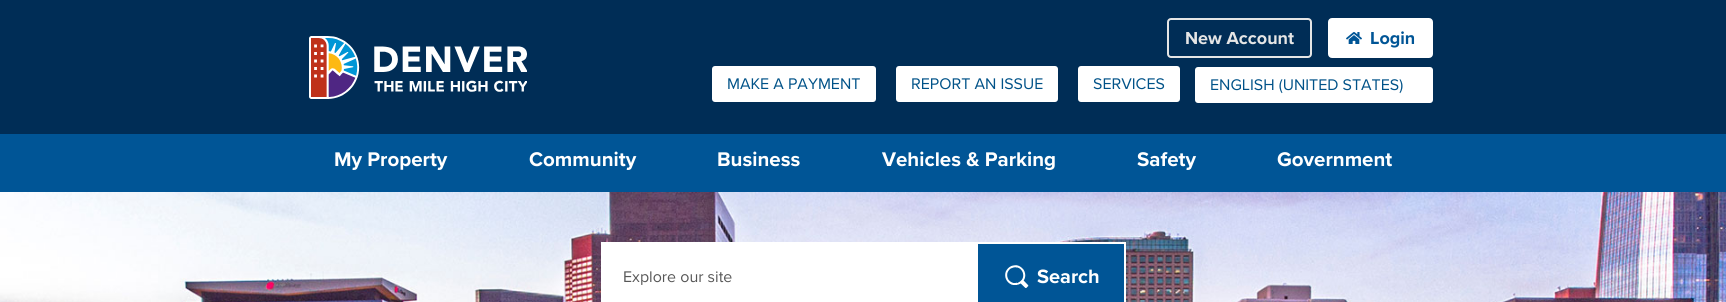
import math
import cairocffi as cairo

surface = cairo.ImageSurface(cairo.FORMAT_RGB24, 1726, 302)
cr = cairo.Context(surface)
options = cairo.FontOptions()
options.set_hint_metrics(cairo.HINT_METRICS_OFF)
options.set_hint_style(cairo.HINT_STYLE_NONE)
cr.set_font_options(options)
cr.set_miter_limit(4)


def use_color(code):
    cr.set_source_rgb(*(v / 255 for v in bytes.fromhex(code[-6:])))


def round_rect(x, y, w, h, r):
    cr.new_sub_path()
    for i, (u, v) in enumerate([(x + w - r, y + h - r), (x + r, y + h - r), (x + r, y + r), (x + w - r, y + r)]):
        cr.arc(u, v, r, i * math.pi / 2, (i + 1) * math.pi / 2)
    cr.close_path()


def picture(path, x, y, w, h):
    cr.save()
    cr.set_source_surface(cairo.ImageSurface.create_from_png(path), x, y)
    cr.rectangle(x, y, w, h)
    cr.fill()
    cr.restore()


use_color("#002d56")
cr.paint()
round_rect(1168, 19, 143, 38, 3)
use_color("#e5e5e5")
cr.stroke()
cr.select_font_face("Proxima Nova", cairo.FONT_SLANT_NORMAL, cairo.FONT_WEIGHT_BOLD)
cr.set_font_size(18)
cr.move_to(1185, 44)
cr.show_text("New Account")
use_color("#ffffff")
round_rect(1329, 19, 103, 38, 3)
cr.fill_preserve()
cr.stroke()
picture("img1.png", 1346, 32, 16, 12)
use_color("#005596")
cr.move_to(1370, 44)
cr.show_text("Login")
use_color("#ffffff")
round_rect(712, 66, 164, 36, 3)
cr.fill()
cr.select_font_face("Proxima Nova")
cr.set_font_size(16)
use_color("#005288")
cr.move_to(727, 89)
cr.show_text("MAKE A PAYMENT")
use_color("#ffffff")
round_rect(896, 66, 162, 36, 3)
cr.fill()
use_color("#005288")
cr.move_to(911, 89)
cr.show_text("REPORT AN ISSUE")
use_color("#ffffff")
round_rect(1078, 66, 102, 36, 3)
cr.fill()
use_color("#005288")
cr.move_to(1093, 89)
cr.show_text("SERVICES")
use_color("#ffffff")
round_rect(1195, 67, 238, 36, 3)
cr.fill()
use_color("#005288")
cr.move_to(1210, 90)
cr.show_text("ENGLISH (UNITED STATES)")
picture("img2.png", 309, 36, 218, 63)
use_color("#005596")
cr.rectangle(0, 134, 1726, 58)
cr.fill()
cr.select_font_face("Proxima Nova", cairo.FONT_SLANT_NORMAL, cairo.FONT_WEIGHT_BOLD)
cr.set_font_size(20.5)
use_color("#ffffff")
cr.move_to(334, 166)
cr.show_text("My Property")
cr.move_to(529, 166)
cr.show_text("Community")
cr.move_to(717, 166)
cr.show_text("Business")
cr.move_to(882, 166)
cr.show_text("Vehicles & Parking")
cr.move_to(1137, 166)
cr.show_text("Safety")
cr.move_to(1277, 166)
cr.show_text("Government")
picture("img4.png", 0, 192, 1726, 110)
cr.rectangle(601, 242, 375, 60)
cr.fill()
cr.select_font_face("Proxima Nova")
cr.set_font_size(16)
use_color("#575757")
cr.move_to(623, 282)
cr.show_text("Explore our site")
use_color("#005596")
cr.rectangle(978, 244, 146, 58)
cr.fill()
picture("img3.png", 1005, 265, 24, 23)
cr.rectangle(977, 243, 148, 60)
use_color("#ffffff")
cr.stroke()
cr.select_font_face("Proxima Nova", cairo.FONT_SLANT_NORMAL, cairo.FONT_WEIGHT_BOLD)
cr.set_font_size(20)
cr.move_to(1037, 283)
cr.show_text("Search")
surface.write_to_png("result.png")
